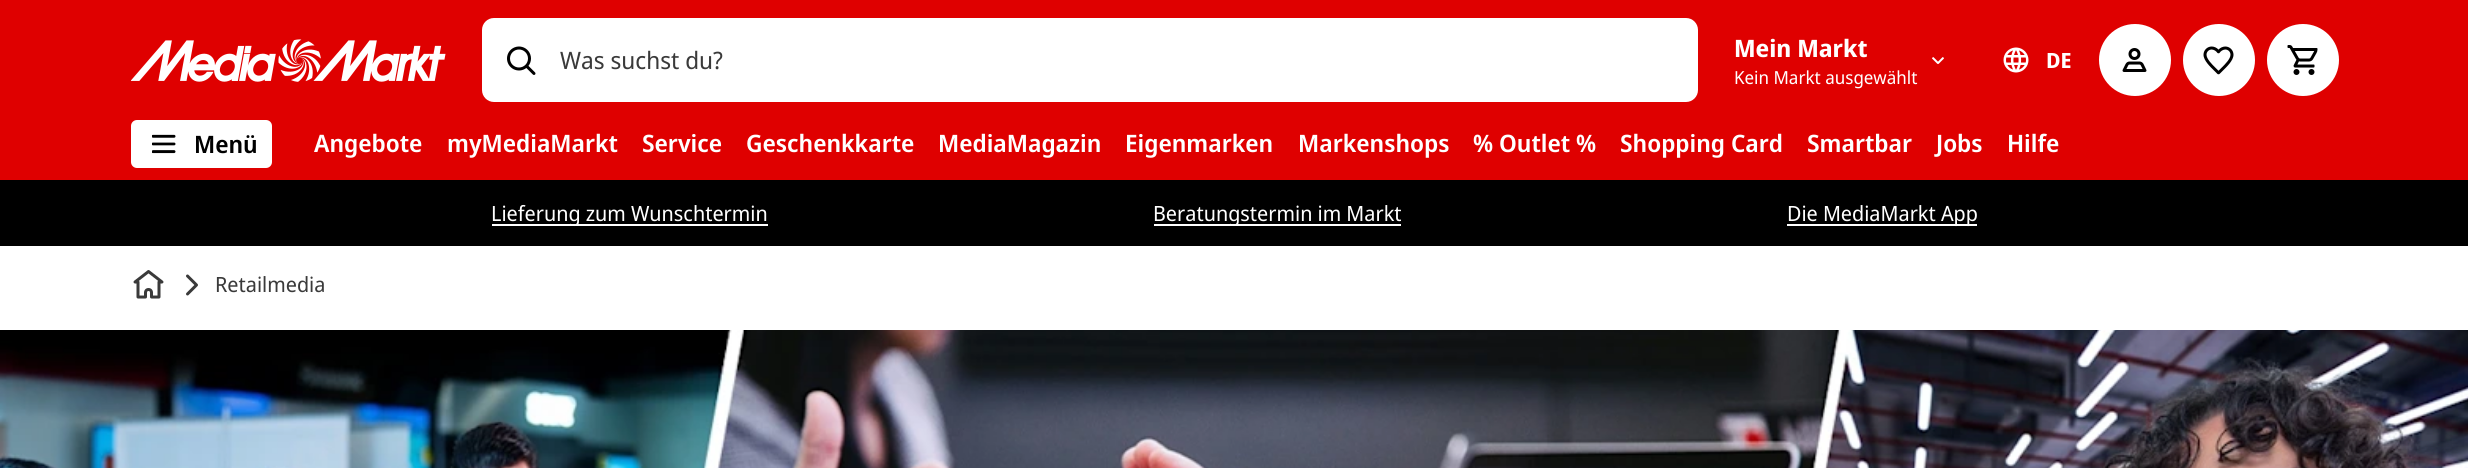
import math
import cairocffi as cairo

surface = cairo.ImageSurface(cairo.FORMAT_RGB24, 2468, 468)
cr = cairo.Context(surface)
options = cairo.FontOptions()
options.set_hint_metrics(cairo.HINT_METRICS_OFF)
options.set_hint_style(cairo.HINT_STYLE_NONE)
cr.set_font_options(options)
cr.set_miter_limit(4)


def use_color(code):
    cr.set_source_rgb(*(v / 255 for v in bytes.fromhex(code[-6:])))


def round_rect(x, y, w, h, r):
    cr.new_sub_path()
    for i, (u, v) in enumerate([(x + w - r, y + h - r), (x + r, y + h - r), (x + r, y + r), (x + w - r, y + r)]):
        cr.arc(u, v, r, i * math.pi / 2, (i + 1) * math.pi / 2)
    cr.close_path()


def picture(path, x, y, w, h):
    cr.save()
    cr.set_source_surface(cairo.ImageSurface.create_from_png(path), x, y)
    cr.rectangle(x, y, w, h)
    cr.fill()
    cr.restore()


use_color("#ffffff")
cr.paint()
use_color("#df0000")
cr.rectangle(0, 0, 2468, 180)
cr.fill()
picture("img1.png", 131, 39, 315, 43)
use_color("#ffffff")
round_rect(482, 18, 1216, 84, 12)
cr.fill()
picture("img2.png", 507, 46, 29, 29)
cr.select_font_face("Noto Sans Display")
cr.set_font_size(24)
use_color("#3a3a3a")
cr.move_to(560, 69)
cr.show_text("Was suchst du?")
cr.select_font_face("Noto Sans Display", cairo.FONT_SLANT_NORMAL, cairo.FONT_WEIGHT_BOLD)
use_color("#ffffff")
cr.move_to(1734, 57)
cr.show_text("Mein Markt")
cr.select_font_face("Noto Sans Display")
cr.set_font_size(18)
cr.move_to(1734, 84)
cr.show_text("Kein Markt ausgewählt")
picture("img3.png", 1932, 57, 12, 7)
picture("img4.png", 2003, 47, 26, 26)
cr.select_font_face("Noto Sans Display", cairo.FONT_SLANT_NORMAL, cairo.FONT_WEIGHT_BOLD)
cr.set_font_size(21)
cr.move_to(2046, 68)
cr.show_text("DE")
cr.new_path()
cr.arc(2135, 60, 34.5, 0, 2 * math.pi)
cr.fill_preserve()
cr.set_line_width(3)
cr.stroke()
picture("img5.png", 2122, 48, 25, 24)
cr.arc(2219, 60, 34.5, 0, 2 * math.pi)
cr.fill_preserve()
cr.stroke()
picture("img6.png", 2203, 46, 31, 29)
cr.arc(2303, 60, 34.5, 0, 2 * math.pi)
cr.fill_preserve()
cr.stroke()
picture("img7.png", 2287, 45, 31, 30)
round_rect(132.5, 121.5, 138, 45, 4.5)
cr.fill_preserve()
cr.stroke()
picture("img8.png", 152, 134, 24, 20)
cr.select_font_face("Noto Sans Display SemiBold")
cr.set_font_size(24)
use_color("#000000")
cr.move_to(194, 153)
cr.show_text("Menü")
use_color("#ffffff")
cr.move_to(314, 152)
cr.show_text("Angebote")
cr.move_to(447, 152)
cr.show_text("myMediaMarkt")
cr.move_to(642, 152)
cr.show_text("Service")
cr.move_to(746, 152)
cr.show_text("Geschenkkarte")
cr.move_to(938, 152)
cr.show_text("MediaMagazin")
cr.move_to(1125, 152)
cr.show_text("Eigenmarken")
cr.move_to(1298, 152)
cr.show_text("Markenshops")
cr.move_to(1473, 152)
cr.show_text("% Outlet %")
cr.move_to(1620, 152)
cr.show_text("Shopping Card")
cr.move_to(1807, 152)
cr.show_text("Smartbar")
cr.move_to(1936, 152)
cr.show_text("Jobs")
cr.move_to(2007, 152)
cr.show_text("Hilfe")
use_color("#000000")
cr.rectangle(0, 180, 2468, 66)
cr.fill()
use_color("#ffffff")
cr.rectangle(492, 224, 276, 2)
cr.fill()
cr.select_font_face("Noto Sans Display")
cr.set_font_size(21)
cr.move_to(491, 221)
cr.show_text("Lieferung zum Wunschtermin")
cr.rectangle(1154, 224, 247, 2)
cr.fill()
cr.move_to(1153, 221)
cr.show_text("Beratungstermin im Markt")
cr.rectangle(1787, 224, 190, 2)
cr.fill()
cr.move_to(1787, 221)
cr.show_text("Die MediaMarkt App")
picture("img9.png", 133, 270, 31, 29)
picture("img10.png", 186, 274, 12, 22)
use_color("#3a3a3a")
cr.move_to(215, 292)
cr.show_text("Retailmedia")
picture("img11.png", 0, 330, 2468, 138)
surface.write_to_png("result.png")
